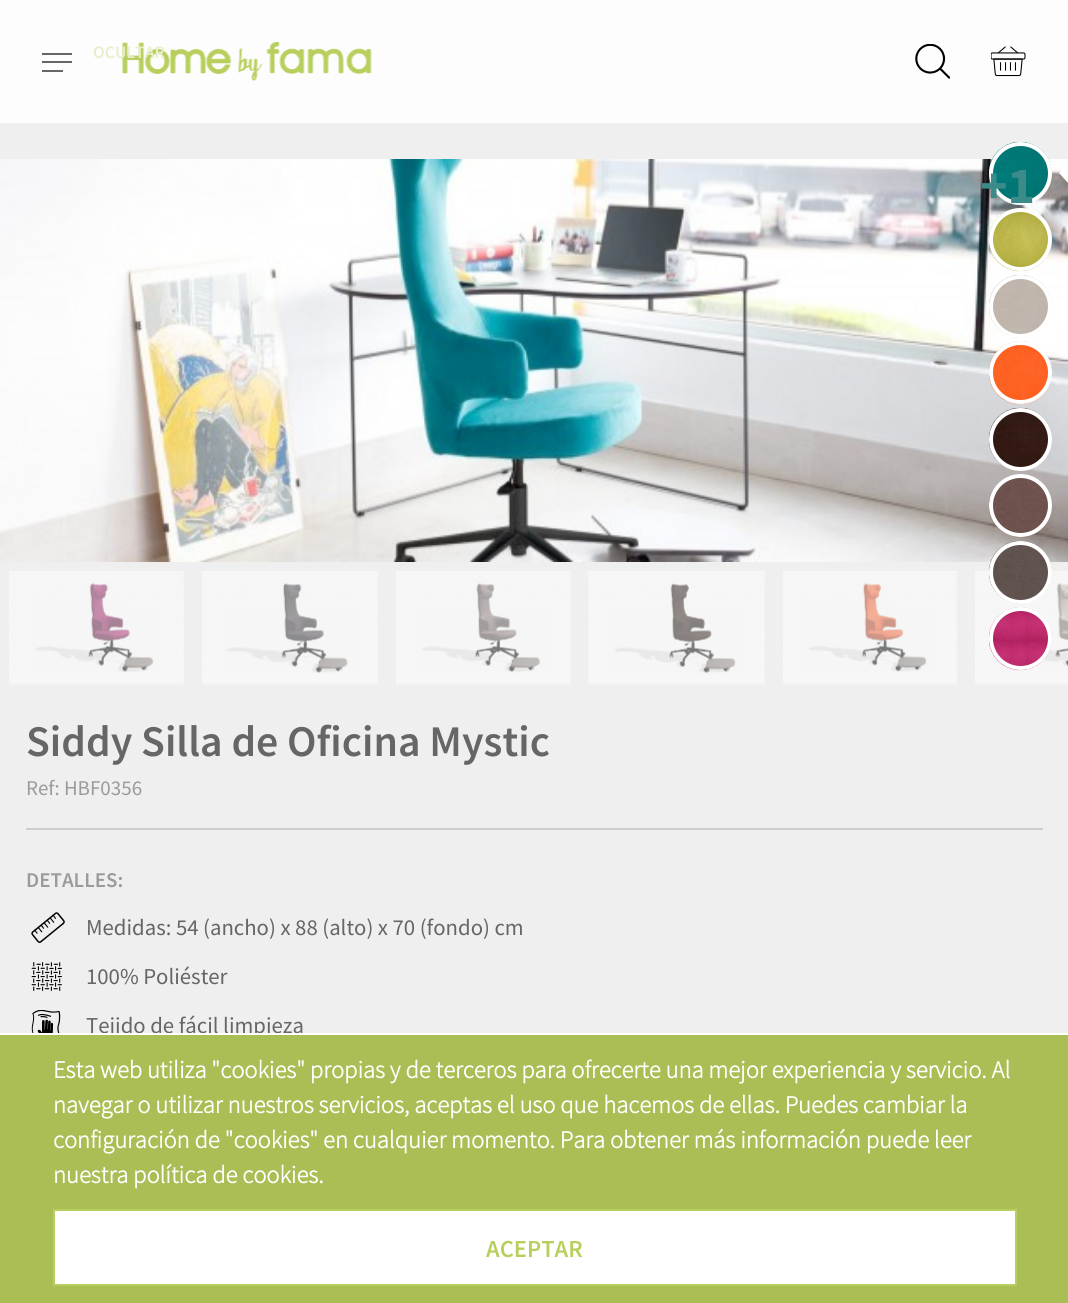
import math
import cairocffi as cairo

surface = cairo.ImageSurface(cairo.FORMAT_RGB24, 1068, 1303)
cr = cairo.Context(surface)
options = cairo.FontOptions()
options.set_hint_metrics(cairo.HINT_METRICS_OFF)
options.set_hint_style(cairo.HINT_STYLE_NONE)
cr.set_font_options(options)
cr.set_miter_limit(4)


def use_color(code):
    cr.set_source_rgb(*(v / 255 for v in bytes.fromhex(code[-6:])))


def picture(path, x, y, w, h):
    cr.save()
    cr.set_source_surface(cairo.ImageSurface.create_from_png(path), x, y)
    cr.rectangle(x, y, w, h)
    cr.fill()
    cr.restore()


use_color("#efefef")
cr.paint()
use_color("#fdfdfd")
cr.rectangle(0, 0, 1068, 123)
cr.fill()
use_color("#666666")
cr.rectangle(42, 53, 30, 2)
cr.fill()
picture("img1.png", 122, 42, 250, 39)
cr.select_font_face("Source Sans Pro SemiBold")
cr.set_font_size(17.5)
use_color("#e8efcd")
cr.move_to(93, 58)
cr.show_text("OCULTAR")
use_color("#666666")
cr.rectangle(42, 61, 30, 2)
cr.fill()
cr.rectangle(42, 70, 21, 2)
cr.fill()
picture("img2.png", 915, 44, 35, 35)
picture("img3.png", 991, 46, 35, 31)
picture("img12.png", 0, 159, 1068, 403)
picture("img4.png", 989, 142, 63, 63)
cr.arc(1020.5, 173.5, 29.5, 0, 2 * math.pi)
use_color("#ffffff")
cr.set_line_width(4)
cr.stroke()
cr.select_font_face("Source Sans Pro", cairo.FONT_SLANT_NORMAL, cairo.FONT_WEIGHT_BOLD)
cr.set_font_size(52)
use_color("#3c8b8b")
cr.move_to(980, 203)
cr.show_text("+1")
picture("img5.png", 989, 208, 63, 64)
cr.arc(1020.5, 239.5, 29.5, 0, 2 * math.pi)
use_color("#ffffff")
cr.stroke()
picture("img6.png", 989, 274, 63, 64)
cr.arc(1020.5, 306.5, 29.5, 0, 2 * math.pi)
cr.stroke()
picture("img7.png", 989, 341, 63, 64)
cr.arc(1020.5, 372.5, 29.5, 0, 2 * math.pi)
cr.stroke()
picture("img8.png", 989, 407, 63, 64)
cr.arc(1020.5, 439.5, 29.5, 0, 2 * math.pi)
cr.stroke()
picture("img9.png", 989, 474, 63, 64)
cr.arc(1020.5, 505.5, 29.5, 0, 2 * math.pi)
cr.stroke()
picture("img18.png", 975, 571, 93, 114)
picture("img10.png", 989, 540, 63, 64)
cr.arc(1020.5, 572.5, 29.5, 0, 2 * math.pi)
cr.stroke()
picture("img11.png", 989, 607, 63, 64)
cr.arc(1020.5, 638.5, 29.5, 0, 2 * math.pi)
cr.stroke()
cr.new_path()
cr.move_to(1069, 163)
cr.line_to(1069, 184)
cr.line_to(1059, 173)
cr.close_path()
cr.fill()
picture("img13.png", 9, 571, 175, 114)
picture("img14.png", 202, 571, 176, 114)
picture("img15.png", 396, 571, 175, 114)
picture("img16.png", 588, 571, 177, 114)
picture("img17.png", 783, 571, 174, 114)
cr.select_font_face("Source Sans Pro SemiBold")
cr.set_font_size(43.75)
use_color("#666666")
cr.move_to(26, 756)
cr.show_text("Siddy Silla de Oficina Mystic")
cr.select_font_face("Source Sans Pro")
cr.set_font_size(21)
use_color("#9b9b9b")
cr.move_to(26, 795)
cr.show_text("Ref: HBF0356")
use_color("#cccccc")
cr.rectangle(26, 828, 1017, 2)
cr.fill()
cr.select_font_face("Source Sans Pro SemiBold")
use_color("#9b9b9b")
cr.move_to(26, 887)
cr.show_text("DETALLES:")
picture("img19.png", 31, 912, 34, 31)
cr.select_font_face("Source Sans Pro")
cr.set_font_size(22.75)
use_color("#666666")
cr.move_to(86, 935)
cr.show_text("Medidas: 54 (ancho) x 88 (alto) x 70 (fondo) cm")
picture("img20.png", 31, 962, 31, 29)
cr.move_to(86, 984)
cr.show_text("100% Poliéster")
picture("img21.png", 31, 1010, 30, 23)
cr.move_to(86, 1033)
cr.show_text("Tejido de fácil limpieza")
use_color("#a9bf55")
cr.rectangle(0, 1035, 1068, 268)
cr.fill()
use_color("#ffffff")
cr.rectangle(0, 1033, 1068, 2)
cr.fill()
cr.select_font_face("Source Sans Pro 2", cairo.FONT_SLANT_NORMAL, cairo.FONT_WEIGHT_BOLD)
cr.set_font_size(24.5)
cr.move_to(53, 1078)
cr.show_text("Esta web utiliza \"cookies\" propias y de terceros para ofrecerte una mejor experiencia y servicio. Al")
cr.move_to(53, 1113)
cr.show_text("navegar o utilizar nuestros servicios, aceptas el uso que hacemos de ellas. Puedes cambiar la")
cr.move_to(53, 1148)
cr.show_text("configuración de \"cookies\" en cualquier momento. Para obtener más información puede leer")
cr.move_to(53, 1183)
cr.show_text("nuestra política de cookies.")
cr.rectangle(54, 1210, 962, 75)
cr.fill_preserve()
use_color("#b7cf5c")
cr.set_line_width(2)
cr.stroke()
cr.select_font_face("Source Sans Pro SemiBold")
cr.move_to(486, 1257)
cr.show_text("ACEPTAR")
surface.write_to_png("result.png")
